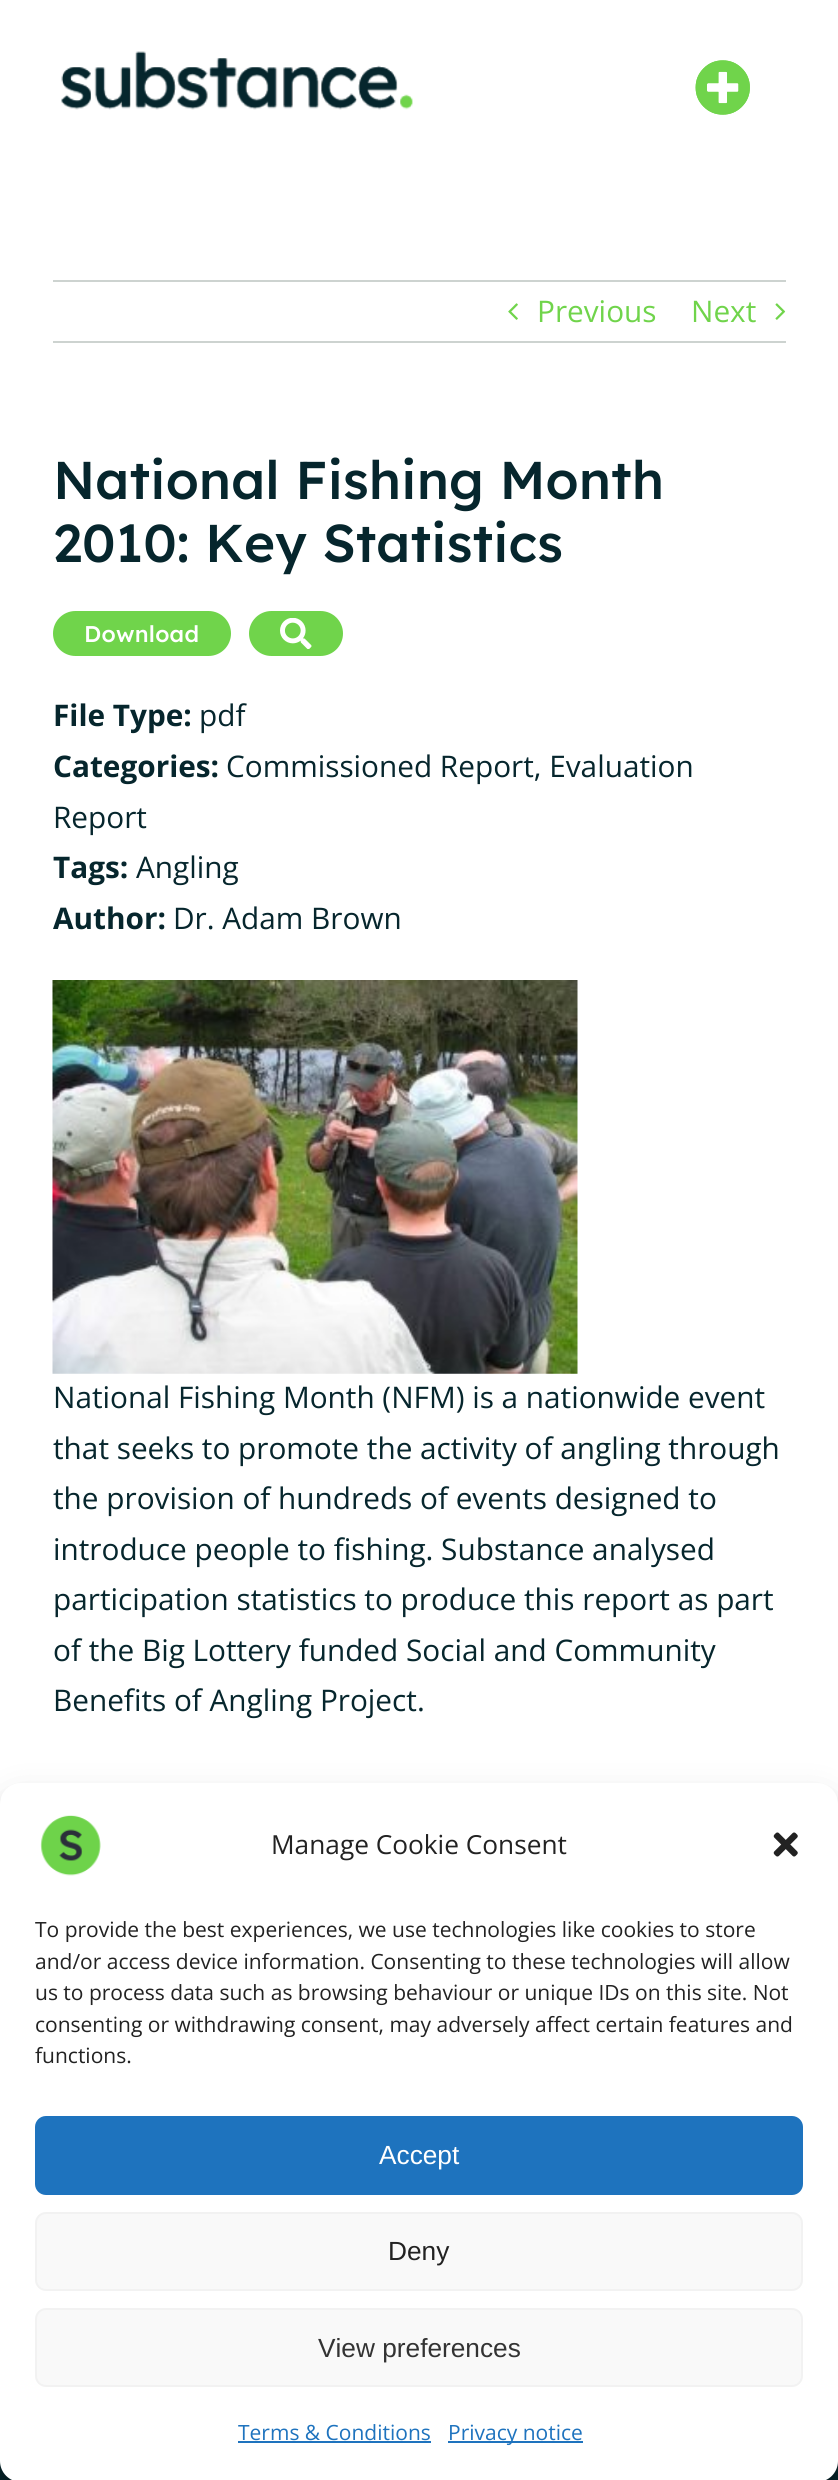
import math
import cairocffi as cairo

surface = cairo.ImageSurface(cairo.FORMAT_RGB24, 838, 2480)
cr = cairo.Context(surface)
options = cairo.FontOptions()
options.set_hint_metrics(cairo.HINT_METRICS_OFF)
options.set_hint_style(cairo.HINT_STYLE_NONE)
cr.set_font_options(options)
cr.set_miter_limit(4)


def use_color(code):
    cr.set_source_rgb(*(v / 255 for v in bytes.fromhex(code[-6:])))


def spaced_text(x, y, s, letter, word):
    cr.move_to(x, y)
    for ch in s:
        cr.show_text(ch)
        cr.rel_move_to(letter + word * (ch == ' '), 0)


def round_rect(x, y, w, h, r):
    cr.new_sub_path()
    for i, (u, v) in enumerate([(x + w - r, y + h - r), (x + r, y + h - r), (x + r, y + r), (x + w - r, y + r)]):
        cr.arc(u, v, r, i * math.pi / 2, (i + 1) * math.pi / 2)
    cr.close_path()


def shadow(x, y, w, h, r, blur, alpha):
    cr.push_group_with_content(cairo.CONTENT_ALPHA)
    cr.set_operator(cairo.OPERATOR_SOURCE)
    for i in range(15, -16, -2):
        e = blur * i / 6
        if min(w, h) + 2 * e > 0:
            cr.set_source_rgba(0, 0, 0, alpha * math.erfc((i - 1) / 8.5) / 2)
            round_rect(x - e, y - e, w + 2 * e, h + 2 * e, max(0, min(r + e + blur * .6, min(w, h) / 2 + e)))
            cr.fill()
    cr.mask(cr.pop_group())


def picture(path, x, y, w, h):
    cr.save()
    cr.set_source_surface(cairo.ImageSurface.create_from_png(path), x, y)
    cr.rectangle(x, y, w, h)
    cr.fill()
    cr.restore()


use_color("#ffffff")
cr.paint()
picture("img1.png", 61, 51, 352, 59)
picture("img2.png", 695, 60, 55, 55)
picture("img3.png", 61, 51, 352, 59)
picture("img4.png", 695, 60, 55, 55)
use_color("#cdd3d0")
cr.rectangle(53, 280, 733, 2)
cr.fill()
cr.rectangle(53, 341, 733, 2)
cr.fill()
picture("img5.png", 508, 303, 10, 17)
cr.select_font_face("Open Sans")
cr.set_font_size(29.75)
use_color("#70d44b")
cr.move_to(537, 322)
cr.show_text("Previous")
cr.move_to(691, 322)
cr.show_text("Next")
picture("img6.png", 775, 303, 11, 17)
cr.select_font_face("Lexend Medium")
cr.set_font_size(53.1)
use_color("#06262d")
cr.move_to(53, 499)
cr.show_text("National Fishing Month")
cr.move_to(53, 562)
cr.show_text("2010: Key Statistics")
use_color("#70d44b")
round_rect(53, 611, 178, 45, 22.5)
cr.fill()
cr.set_font_size(22.75)
use_color("#ffffff")
spaced_text(84, 642, "Download", 0.25, 0)
use_color("#70d44b")
round_rect(249, 611, 94, 45, 22.5)
cr.fill()
picture("img7.png", 280, 618, 32, 31)
cr.select_font_face("Open Sans", cairo.FONT_SLANT_NORMAL, cairo.FONT_WEIGHT_BOLD)
cr.set_font_size(29.75)
use_color("#06262d")
cr.move_to(53, 726)
cr.show_text("File Type:")
cr.select_font_face("Open Sans")
cr.move_to(199, 726)
cr.show_text("pdf")
cr.select_font_face("Open Sans", cairo.FONT_SLANT_NORMAL, cairo.FONT_WEIGHT_BOLD)
cr.move_to(53, 777)
cr.show_text("Categories:")
cr.select_font_face("Open Sans")
cr.move_to(226, 777)
cr.show_text("Commissioned Report, Evaluation")
cr.move_to(53, 828)
cr.show_text("Report")
cr.select_font_face("Open Sans", cairo.FONT_SLANT_NORMAL, cairo.FONT_WEIGHT_BOLD)
cr.move_to(53, 878)
cr.show_text("Tags:")
cr.select_font_face("Open Sans")
cr.move_to(136, 878)
cr.show_text("Angling")
cr.select_font_face("Open Sans", cairo.FONT_SLANT_NORMAL, cairo.FONT_WEIGHT_BOLD)
cr.move_to(53, 929)
cr.show_text("Author:")
cr.select_font_face("Open Sans")
cr.move_to(173, 929)
cr.show_text("Dr. Adam Brown")
picture("img8.png", 52, 980, 526, 394)
cr.move_to(53, 1408)
cr.show_text("National Fishing Month (NFM) is a nationwide event")
cr.move_to(53, 1459)
cr.show_text("that seeks to promote the activity of angling through")
cr.move_to(53, 1509)
cr.show_text("the provision of hundreds of events designed to")
cr.move_to(53, 1560)
cr.show_text("introduce people to fishing. Substance analysed")
cr.move_to(53, 1610)
cr.show_text("participation statistics to produce this report as part")
cr.move_to(53, 1661)
cr.show_text("of the Big Lottery funded Social and Community")
cr.move_to(53, 1711)
cr.show_text("Benefits of Angling Project.")
cr.rectangle(0, 2461, 838, 19)
cr.fill()
use_color("#000000")
shadow(0, 1794, 838, 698, 21, 5, 0.23)
shadow(0, 1801, 838, 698, 21, 17.5, 0.19)
use_color("#ffffff")
round_rect(0, 1783, 838, 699, 21)
cr.fill()
picture("img9.png", 40, 1815, 61, 61)
cr.set_font_size(26.25)
use_color("#222222")
cr.move_to(271, 1854)
cr.show_text("Manage Cookie Consent")
picture("img10.png", 773, 1832, 25, 25)
cr.set_font_size(21)
cr.move_to(35, 1937)
cr.show_text("To provide the best experiences, we use technologies like cookies to store")
cr.move_to(35, 1969)
cr.show_text("and/or access device information. Consenting to these technologies will allow")
cr.move_to(35, 2000)
cr.show_text("us to process data such as browsing behaviour or unique IDs on this site. Not")
cr.move_to(35, 2032)
cr.show_text("consenting or withdrawing consent, may adversely affect certain features and")
cr.move_to(35, 2063)
cr.show_text("functions.")
use_color("#1e73be")
round_rect(36, 2117, 766, 77, 10)
cr.fill_preserve()
cr.stroke()
cr.select_font_face("Liberation Sans")
cr.set_font_size(26.25)
use_color("#ffffff")
cr.move_to(379, 2164)
cr.show_text("Accept")
use_color("#f9f9f9")
round_rect(36, 2213, 766, 77, 10)
cr.fill_preserve()
use_color("#f2f2f2")
cr.stroke()
use_color("#222222")
cr.move_to(388, 2260)
cr.show_text("Deny")
use_color("#f9f9f9")
round_rect(36, 2309, 766, 77, 10)
cr.fill_preserve()
use_color("#f2f2f2")
cr.stroke()
use_color("#333333")
cr.move_to(318, 2357)
cr.show_text("View preferences")
cr.select_font_face("Open Sans")
cr.set_font_size(21)
use_color("#1e73be")
cr.move_to(238, 2440)
cr.show_text("Terms & Conditions")
cr.rectangle(238, 2441, 193, 2)
cr.fill()
cr.rectangle(448, 2441, 135, 2)
cr.fill()
cr.move_to(448, 2440)
cr.show_text("Privacy notice")
surface.write_to_png("result.png")
